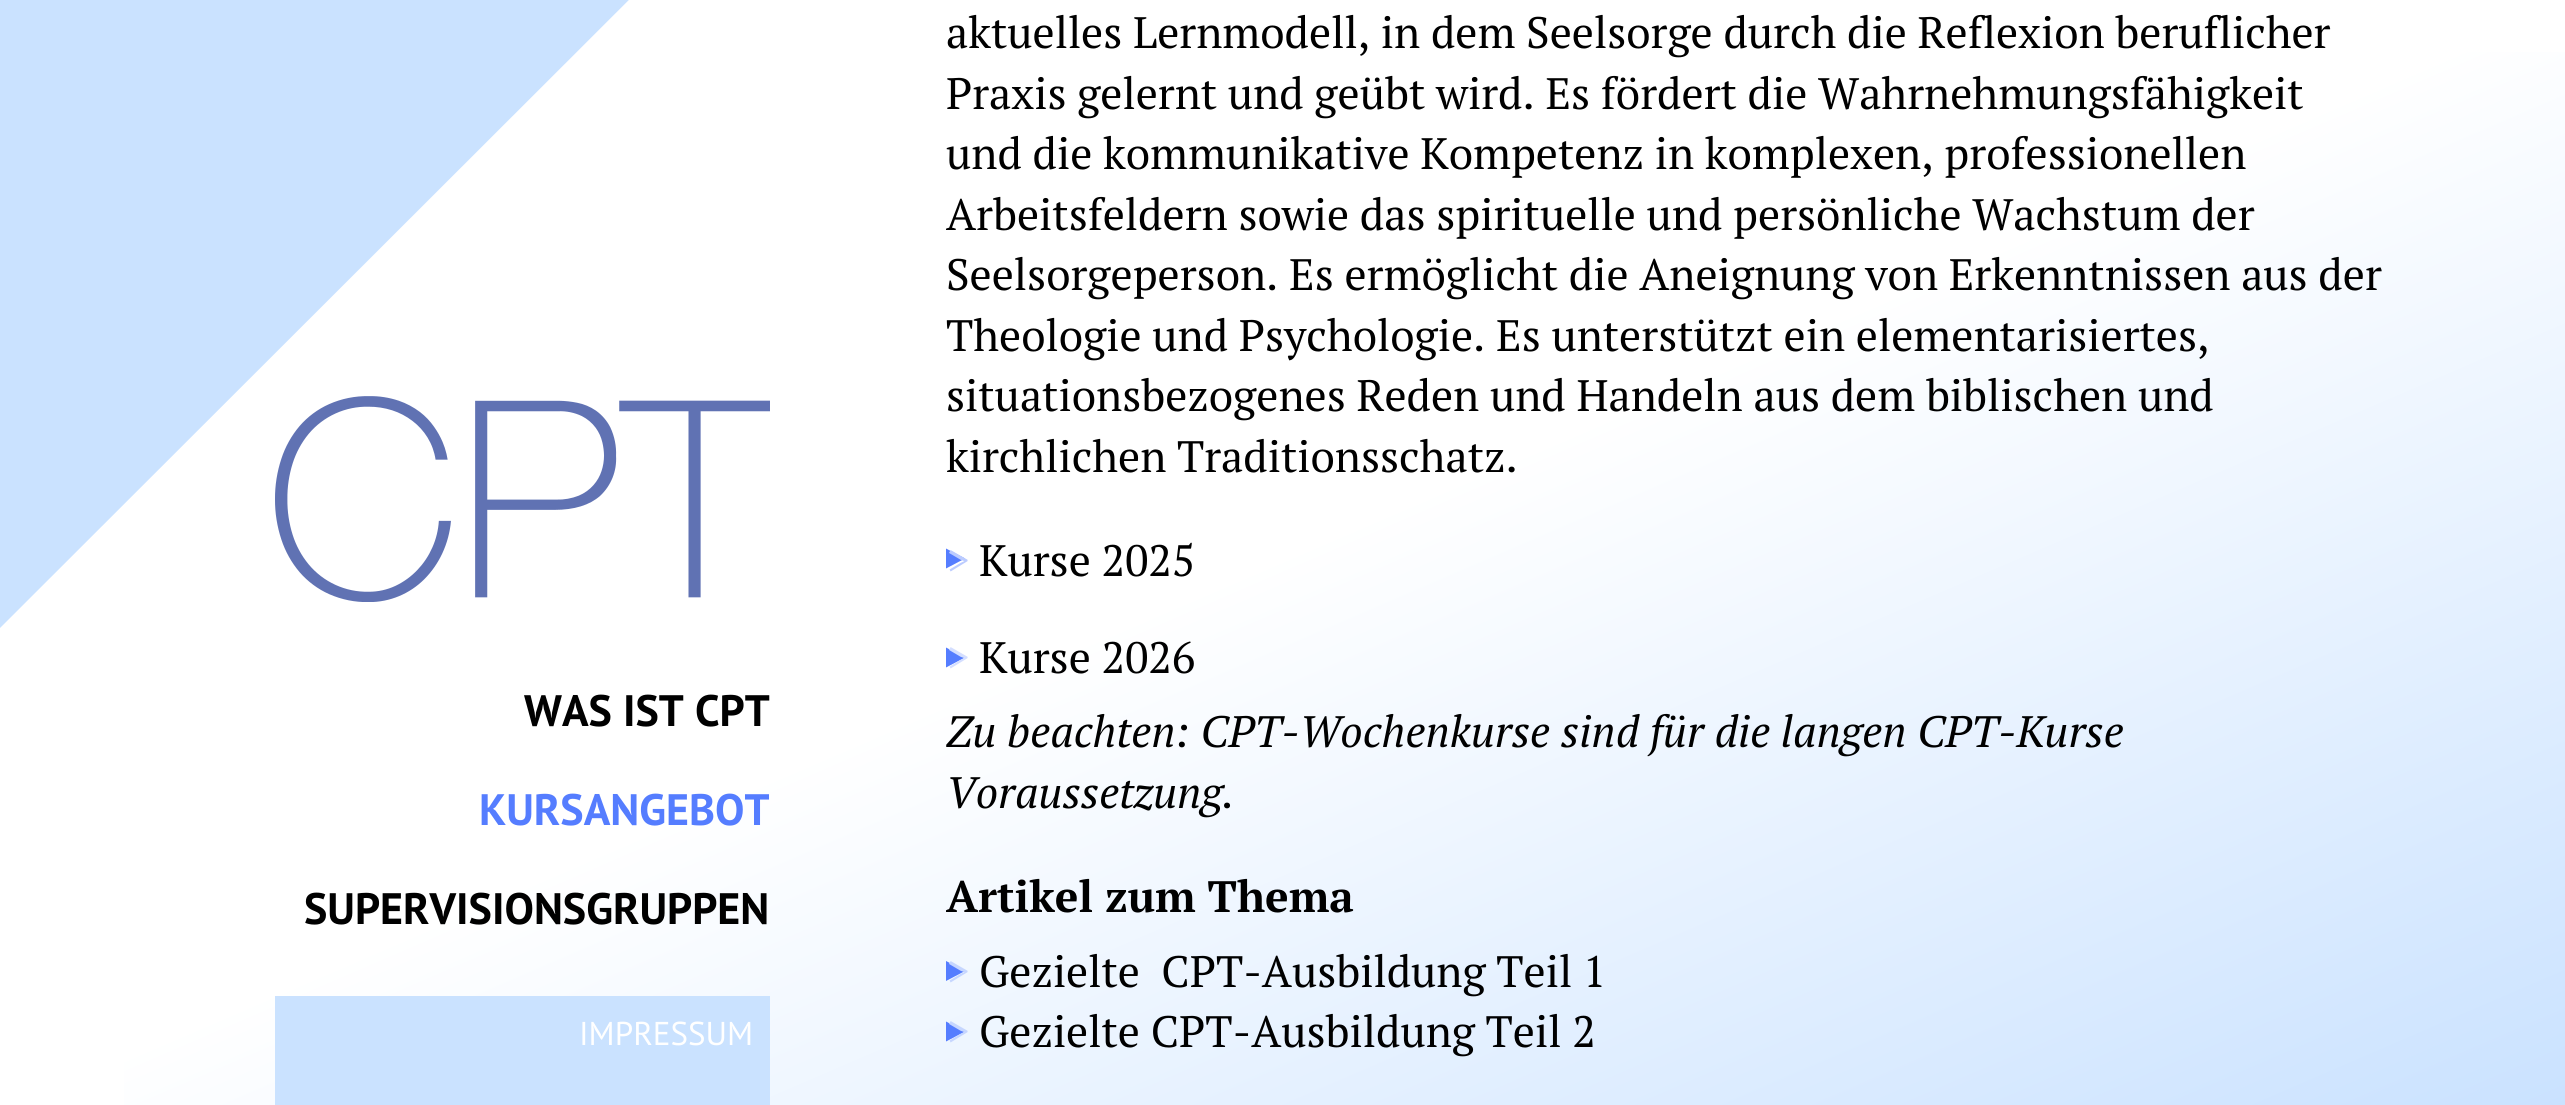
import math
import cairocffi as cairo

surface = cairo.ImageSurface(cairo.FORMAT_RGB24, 2565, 1105)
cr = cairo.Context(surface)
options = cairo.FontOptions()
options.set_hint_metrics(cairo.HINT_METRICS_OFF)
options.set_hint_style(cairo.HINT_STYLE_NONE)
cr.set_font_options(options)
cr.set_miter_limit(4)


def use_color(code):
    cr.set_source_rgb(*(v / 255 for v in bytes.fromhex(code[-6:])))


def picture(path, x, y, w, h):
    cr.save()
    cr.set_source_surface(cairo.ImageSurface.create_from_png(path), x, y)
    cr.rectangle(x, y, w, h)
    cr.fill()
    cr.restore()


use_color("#ffffff")
cr.paint()
gradient = cairo.LinearGradient(881, -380, 1685, 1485)
gradient.add_color_stop_rgba(0.5, 1, 1, 1, 1)
gradient.add_color_stop_rgba(1, 0.792, 0.886, 1, 1)
cr.set_source(gradient)
cr.rectangle(124, 52, 2441, 1053)
cr.fill()
use_color("#cae2ff")
cr.new_path()
cr.move_to(-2, -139)
cr.line_to(-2, 630)
cr.line_to(768, -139)
cr.close_path()
cr.fill()
picture("img1.png", 275, 396, 495, 206)
cr.select_font_face("PT Sans", cairo.FONT_SLANT_NORMAL, cairo.FONT_WEIGHT_BOLD)
cr.set_font_size(44)
use_color("#000000")
cr.move_to(524, 726)
cr.show_text("WAS IST CPT")
use_color("#557dff")
cr.move_to(479, 825)
cr.show_text("KURSANGEBOT")
use_color("#000000")
cr.move_to(304, 924)
cr.show_text("SUPERVISIONSGRUPPEN")
use_color("#cae2ff")
cr.rectangle(275, 996, 495, 109)
cr.fill()
cr.select_font_face("PT Sans")
cr.set_font_size(33)
use_color("#ffffff")
cr.move_to(579, 1045)
cr.show_text("IMPRESSUM")
cr.select_font_face("PT Serif")
cr.set_font_size(44)
use_color("#000000")
cr.move_to(946, 48)
cr.show_text("aktuelles Lernmodell, in dem Seelsorge durch die Reflexion beruflicher")
cr.move_to(946, 109)
cr.show_text("Praxis gelernt und geübt wird. Es fördert die Wahrnehmungsfähigkeit")
cr.move_to(946, 169)
cr.show_text("und die kommunikative Kompetenz in komplexen, professionellen")
cr.move_to(946, 230)
cr.show_text("Arbeitsfeldern sowie das spirituelle und persönliche Wachstum der")
cr.move_to(946, 290)
cr.show_text("Seelsorgeperson. Es ermöglicht die Aneignung von Erkenntnissen aus der")
cr.move_to(946, 351)
cr.show_text("Theologie und Psychologie. Es unterstützt ein elementarisiertes,")
cr.move_to(946, 411)
cr.show_text("situationsbezogenes Reden und Handeln aus dem biblischen und")
cr.move_to(946, 472)
cr.show_text("kirchlichen Traditionsschatz.")
use_color("#557dff")
cr.new_path()
cr.move_to(946, 548.5)
cr.line_to(946, 568.5)
cr.line_to(965, 558.5)
cr.close_path()
cr.fill()
use_color("#bbcbff")
cr.move_to(946, 576)
cr.show_text(">")
use_color("#000000")
cr.move_to(979, 576)
cr.show_text("Kurse 2025")
use_color("#557dff")
cr.new_path()
cr.move_to(946, 647.5)
cr.line_to(946, 667.5)
cr.line_to(965, 657.5)
cr.close_path()
cr.fill()
use_color("#d4deff")
cr.move_to(946, 673)
cr.show_text(">")
use_color("#000000")
cr.move_to(979, 673)
cr.show_text("Kurse 2026")
cr.select_font_face("PT Serif", cairo.FONT_SLANT_ITALIC)
cr.move_to(946, 747)
cr.show_text("Zu beachten: CPT-Wochenkurse sind für die langen CPT-Kurse")
cr.move_to(946, 808)
cr.show_text("Voraussetzung.")
cr.select_font_face("PT Serif", cairo.FONT_SLANT_NORMAL, cairo.FONT_WEIGHT_BOLD)
cr.move_to(946, 912)
cr.show_text("Artikel zum Thema")
use_color("#557dff")
cr.new_path()
cr.move_to(946, 961)
cr.line_to(946, 981)
cr.line_to(965, 971)
cr.close_path()
cr.fill()
cr.select_font_face("PT Serif")
use_color("#c6d6ff")
cr.move_to(946, 987)
cr.show_text(">")
use_color("#000000")
cr.move_to(979, 987)
cr.show_text("Gezielte  CPT-Ausbildung Teil 1")
use_color("#557dff")
cr.new_path()
cr.move_to(946, 1021.5)
cr.line_to(946, 1041.5)
cr.line_to(965, 1031.5)
cr.close_path()
cr.fill()
use_color("#c6d6ff")
cr.move_to(946, 1047)
cr.show_text(">")
use_color("#000000")
cr.move_to(979, 1047)
cr.show_text("Gezielte CPT-Ausbildung Teil 2")
surface.write_to_png("result.png")
